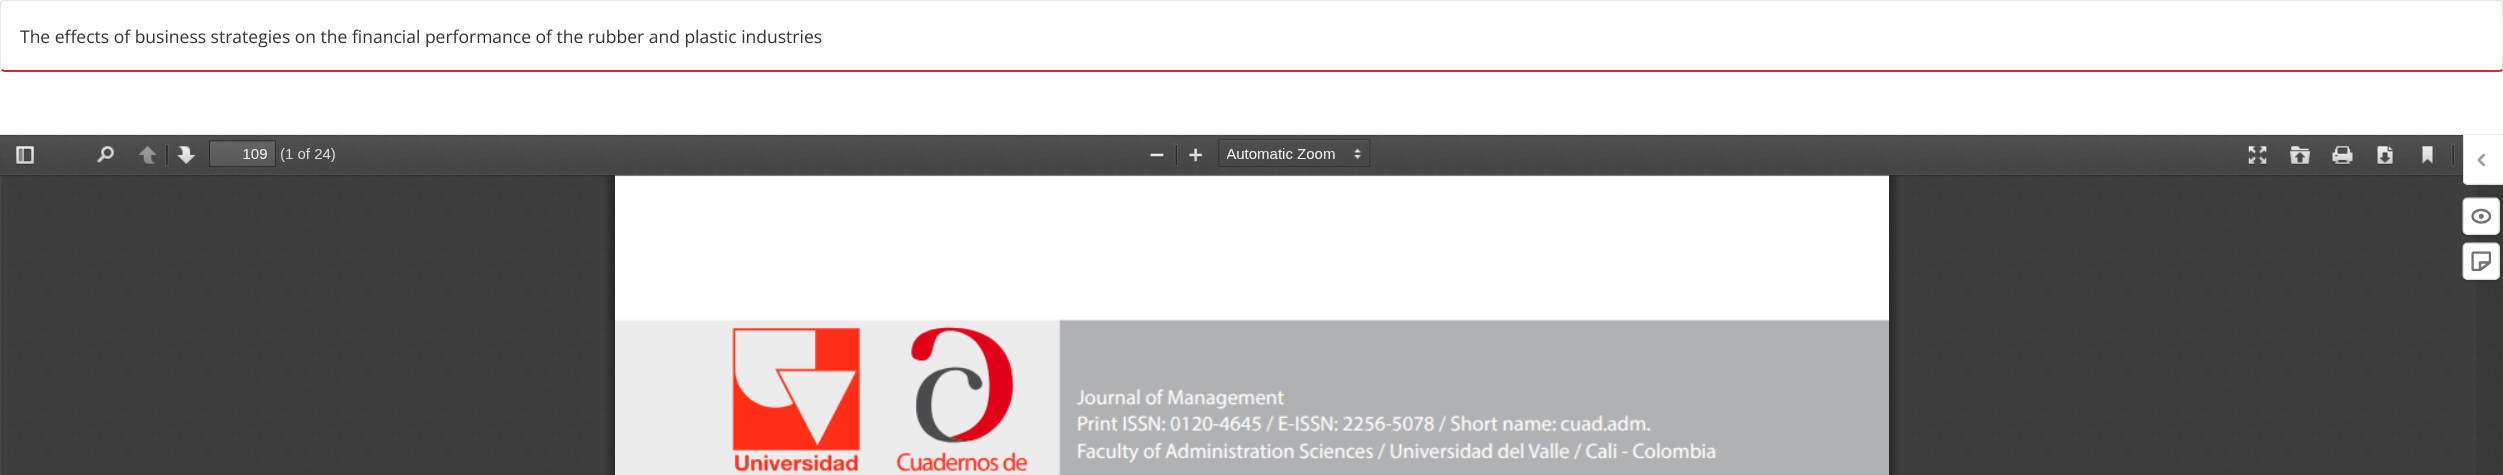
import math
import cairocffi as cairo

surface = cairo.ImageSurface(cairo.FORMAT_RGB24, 2503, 475)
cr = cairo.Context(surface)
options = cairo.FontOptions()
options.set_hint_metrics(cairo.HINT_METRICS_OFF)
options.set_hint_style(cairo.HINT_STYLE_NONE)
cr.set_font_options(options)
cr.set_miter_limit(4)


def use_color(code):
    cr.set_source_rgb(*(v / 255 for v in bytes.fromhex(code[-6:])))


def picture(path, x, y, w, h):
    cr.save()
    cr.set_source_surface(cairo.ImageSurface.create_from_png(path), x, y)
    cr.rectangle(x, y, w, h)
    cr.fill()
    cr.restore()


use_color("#ffffff")
cr.paint()
use_color("#e7e7e7")
cr.new_path()
cr.move_to(5, 0)
cr.curve_to(4, 0, 2, 0, 1, 1)
cr.line_to(2, 2)
cr.curve_to(3, 2, 4, 1, 5, 1)
cr.line_to(2499, 1)
cr.curve_to(2500, 1, 2501, 2, 2501, 2)
cr.line_to(2502, 1)
cr.curve_to(2502, 0, 2500, 0, 2499, 0)
cr.close_path()
cr.fill()
cr.new_path()
cr.move_to(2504, 69)
cr.line_to(2503, 71)
cr.line_to(2502, 69)
cr.curve_to(2502, 67, 2503, 4, 2501, 2)
cr.line_to(2502, 1)
cr.line_to(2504, 3)
cr.close_path()
cr.fill()
use_color("#d12e2e")
cr.new_path()
cr.move_to(2503, 71)
cr.curve_to(2502, 71, 2501, 72, 2499, 72)
cr.line_to(5, 72)
cr.curve_to(3, 72, 2, 71, 1, 70)
cr.line_to(2, 69)
cr.line_to(5, 70)
cr.line_to(2499, 70)
cr.curve_to(2501, 70, 2501, 69, 2502, 69)
cr.close_path()
cr.fill()
use_color("#e7e7e7")
cr.new_path()
cr.move_to(0, 5)
cr.line_to(0, 68)
cr.line_to(1, 70)
cr.line_to(2, 69)
cr.line_to(1, 69)
cr.line_to(1, 5)
cr.line_to(2, 2)
cr.line_to(1, 1)
cr.curve_to(0, 2, 0, 4, 0, 5)
cr.close_path()
cr.fill()
cr.select_font_face("Open Sans")
cr.set_font_size(17.5)
use_color("#333333")
cr.move_to(20, 43)
cr.show_text("The effects of business strategies on the financial performance of the rubber and plastic industries")
picture("img1.png", 0, 134, 2503, 341)
surface.write_to_png("result.png")
